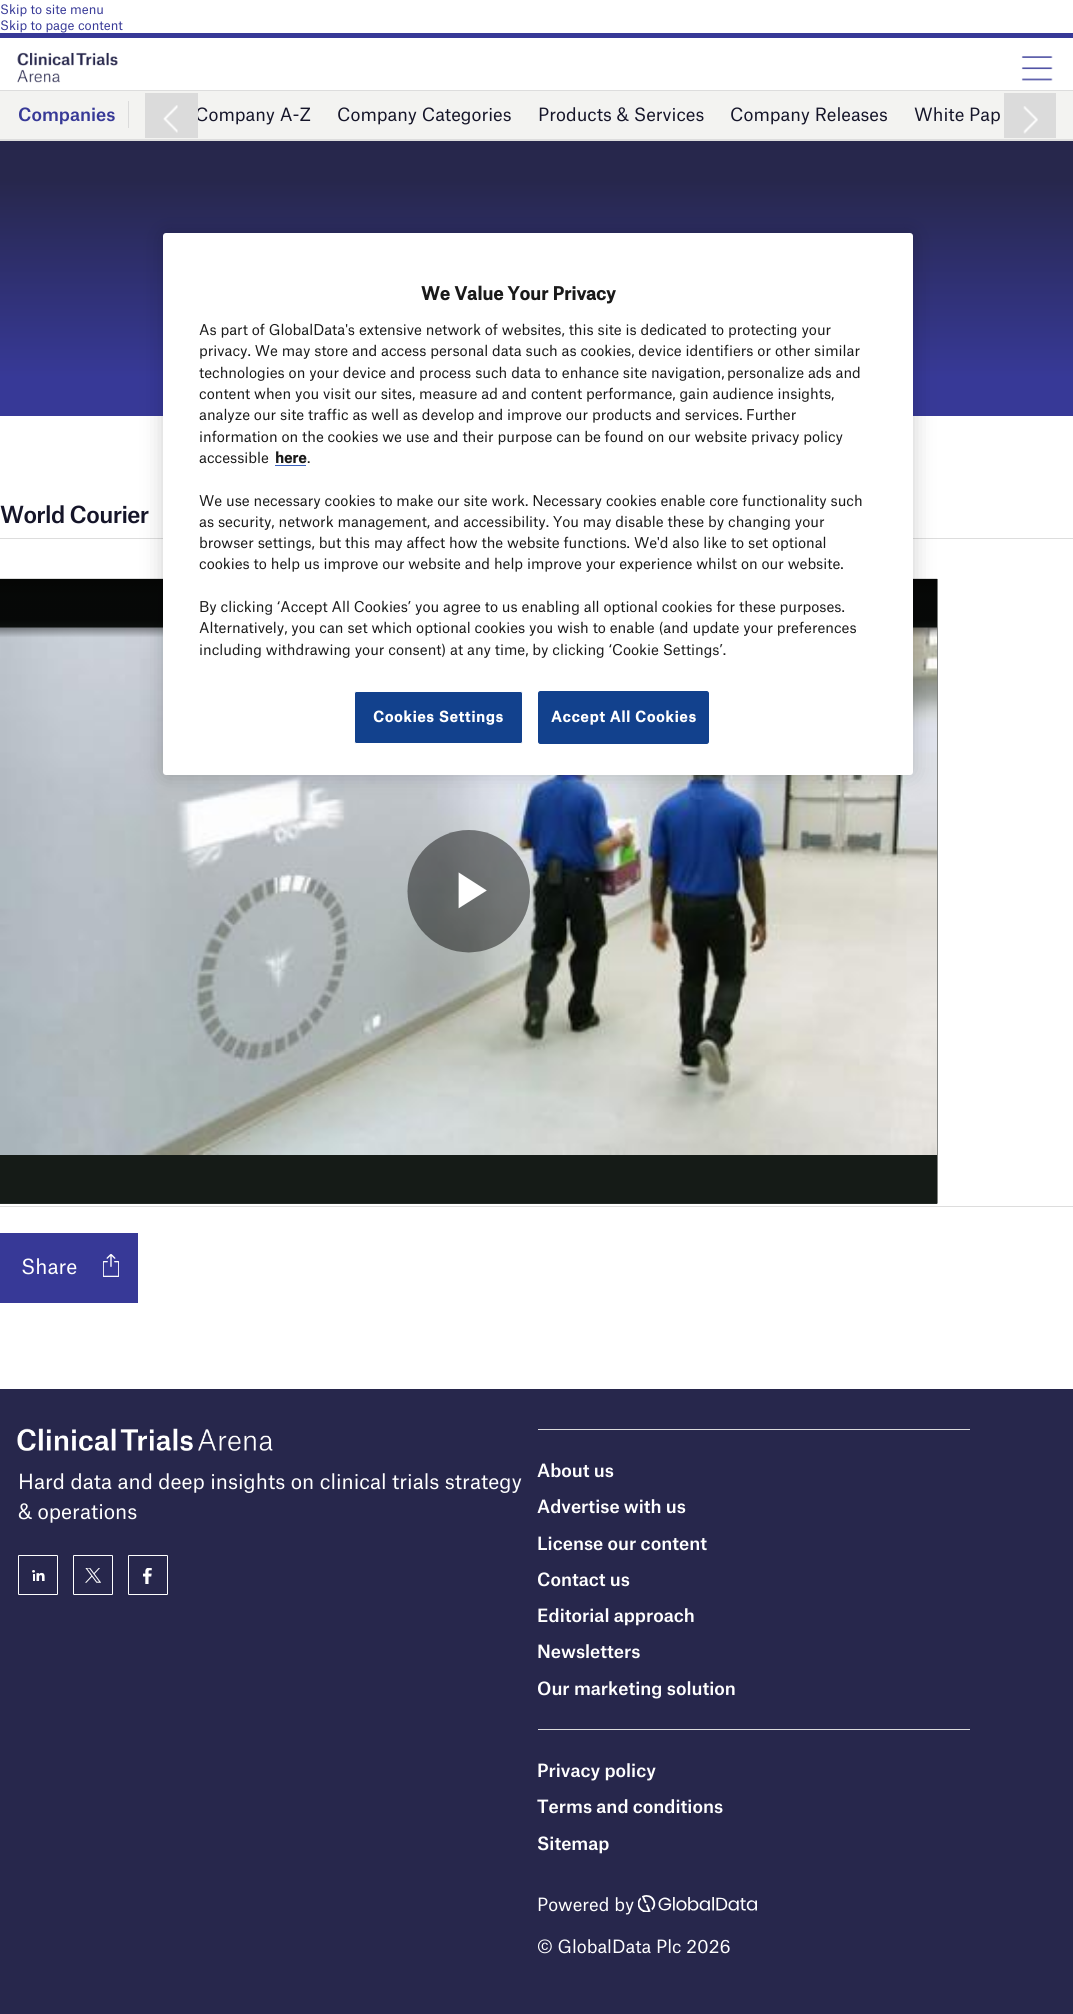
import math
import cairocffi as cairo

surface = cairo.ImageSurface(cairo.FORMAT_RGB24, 1073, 2014)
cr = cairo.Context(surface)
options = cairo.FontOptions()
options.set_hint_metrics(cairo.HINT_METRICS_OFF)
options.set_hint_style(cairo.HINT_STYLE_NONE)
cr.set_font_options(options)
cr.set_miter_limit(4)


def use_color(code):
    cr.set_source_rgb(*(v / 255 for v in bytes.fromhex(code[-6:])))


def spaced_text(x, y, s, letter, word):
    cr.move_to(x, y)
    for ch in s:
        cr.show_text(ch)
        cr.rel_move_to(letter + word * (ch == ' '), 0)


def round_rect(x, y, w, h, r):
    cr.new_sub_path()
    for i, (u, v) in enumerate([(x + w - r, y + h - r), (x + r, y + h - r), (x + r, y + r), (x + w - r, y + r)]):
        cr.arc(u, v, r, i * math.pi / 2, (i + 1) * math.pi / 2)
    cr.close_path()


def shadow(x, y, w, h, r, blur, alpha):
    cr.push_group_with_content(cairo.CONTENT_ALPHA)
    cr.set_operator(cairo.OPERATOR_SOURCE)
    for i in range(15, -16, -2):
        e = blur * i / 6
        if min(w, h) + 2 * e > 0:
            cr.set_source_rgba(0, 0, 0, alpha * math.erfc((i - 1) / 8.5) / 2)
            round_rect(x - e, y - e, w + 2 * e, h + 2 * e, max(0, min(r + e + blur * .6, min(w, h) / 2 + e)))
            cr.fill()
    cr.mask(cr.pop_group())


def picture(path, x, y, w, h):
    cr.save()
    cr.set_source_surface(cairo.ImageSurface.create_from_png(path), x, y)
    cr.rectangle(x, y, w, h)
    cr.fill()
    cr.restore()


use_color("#ffffff")
cr.paint()
cr.select_font_face("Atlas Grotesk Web")
cr.set_font_size(12.5)
use_color("#373997")
cr.move_to(0, 14)
cr.show_text("Skip to site menu")
cr.move_to(0, 30)
cr.show_text("Skip to page content")
cr.rectangle(0, 33, 1073, 5)
cr.fill()
use_color("#dddddd")
cr.rectangle(0, 139, 1073, 2)
cr.fill()
picture("img1.png", 17, 52, 101, 31)
picture("img2.png", 1021, 56, 32, 25)
use_color("#f3f3f1")
cr.rectangle(0, 91, 1073, 48)
cr.fill()
use_color("#dddddd")
cr.rectangle(0, 90, 1073, 1)
cr.fill()
cr.select_font_face("Atlas Grotesk Web Medium")
cr.set_font_size(17.5)
use_color("#373997")
cr.move_to(18, 121)
cr.show_text("Companies")
use_color("#dbdbdb")
cr.rectangle(128, 101, 1, 27)
cr.fill()
cr.select_font_face("Atlas Grotesk Web")
use_color("#151529")
cr.move_to(195, 121)
cr.show_text("Company A-Z")
use_color("#dbdbdb")
cr.rectangle(145, 93, 53, 45)
cr.fill()
picture("img3.png", 163, 105, 15, 28)
use_color("#151529")
cr.move_to(337, 121)
cr.show_text("Company Categories")
cr.move_to(538, 121)
cr.show_text("Products & Services")
cr.move_to(730, 121)
cr.show_text("Company Releases")
cr.move_to(914, 121)
cr.show_text("White Pap")
use_color("#dbdbdb")
cr.rectangle(1004, 93, 52, 45)
cr.fill()
picture("img4.png", 1023, 106, 15, 28)
gradient = cairo.LinearGradient(537, 141, 537, 416)
gradient.add_color_stop_rgba(0.14, 0.153, 0.153, 0.298, 1)
gradient.add_color_stop_rgba(0.86, 0.216, 0.224, 0.592, 1)
cr.set_source(gradient)
cr.rectangle(0, 141, 1073, 275)
cr.fill()
use_color("#dddddd")
cr.rectangle(0, 538, 1073, 1)
cr.fill()
cr.select_font_face("Atlas Grotesk Web Medium")
cr.set_font_size(22.5)
use_color("#151529")
spaced_text(0, 523, "World Courier", -0.6, 0)
picture("img5.png", 0, 578, 938, 626)
use_color("#dddddd")
cr.rectangle(0, 1206, 1073, 1)
cr.fill()
use_color("#373997")
cr.rectangle(0, 1233, 138, 70)
cr.fill()
cr.select_font_face("Atlas Grotesk Web")
cr.set_font_size(20)
use_color("#ffffff")
cr.move_to(21, 1274)
cr.show_text("Share")
picture("img6.png", 103, 1254, 16, 23)
use_color("#000000")
shadow(163, 233, 750, 542, 3, 11, 0.2)
use_color("#ffffff")
round_rect(163, 233, 750, 542, 3)
cr.fill()
cr.select_font_face("Atlas Grotesk Web", cairo.FONT_SLANT_NORMAL, cairo.FONT_WEIGHT_BOLD)
cr.set_font_size(17.5)
use_color("#1a1a1a")
cr.move_to(421, 300)
cr.show_text("We Value Your Privacy")
cr.select_font_face("Atlas Grotesk Web")
cr.set_font_size(14.25)
cr.move_to(199, 335)
cr.show_text("As part of GlobalData's extensive network of websites, this site is dedicated to protecting your")
cr.move_to(199, 356)
cr.show_text("privacy. We may store and access personal data such as cookies, device identifiers or other similar")
cr.move_to(199, 378)
cr.show_text("technologies on your device and process such data to enhance site navigation,")
cr.move_to(727, 378)
cr.show_text("personalize ads and")
cr.move_to(199, 399)
cr.show_text("content when you visit our sites, measure ad and content performance, gain audience insights,")
cr.move_to(199, 420)
cr.show_text("analyze our site traffic as well as develop and improve our products and services.")
cr.move_to(746, 420)
cr.show_text("Further")
cr.move_to(199, 442)
cr.show_text("information on the cookies we use and their purpose can be found on our website privacy policy")
cr.move_to(199, 463)
cr.show_text("accessible")
cr.select_font_face("Atlas Grotesk Web", cairo.FONT_SLANT_NORMAL, cairo.FONT_WEIGHT_BOLD)
cr.move_to(275, 463)
cr.show_text("here")
use_color("#3860be")
cr.rectangle(275, 465, 31, 1)
cr.fill()
cr.select_font_face("Atlas Grotesk Web")
use_color("#1a1a1a")
cr.move_to(307, 463)
cr.show_text(".")
cr.move_to(199, 506)
cr.show_text("We use necessary cookies to make our site work. Necessary cookies enable core functionality such")
cr.move_to(199, 527)
cr.show_text("as security, network management, and accessibility. You may disable these by changing your")
cr.move_to(199, 548)
cr.show_text("browser settings, but this may affect how the website functions. We'd also like to set optional")
cr.move_to(199, 569)
cr.show_text("cookies to help us improve our website and help improve your experience whilst on our website.")
cr.move_to(199, 612)
cr.show_text("By clicking ‘Accept All Cookies’ you agree to us enabling all optional cookies for these purposes.")
cr.move_to(199, 633)
cr.show_text("Alternatively, you can set which optional cookies you wish to enable (and update your preferences")
cr.move_to(199, 655)
cr.show_text("including withdrawing your consent) at any time, by clicking ‘Cookie Settings’.")
use_color("#12418d")
round_rect(354.5, 691.5, 168, 52, 2)
cr.fill_preserve()
use_color("#ffffff")
cr.set_line_width(1)
cr.stroke()
cr.select_font_face("Atlas Grotesk Web", cairo.FONT_SLANT_NORMAL, cairo.FONT_WEIGHT_BOLD)
spaced_text(373, 722, "Cookies Settings", 0.75, 0)
use_color("#12418d")
round_rect(538.5, 691.5, 170, 52, 2)
cr.fill_preserve()
cr.stroke()
use_color("#ffffff")
spaced_text(551, 722, "Accept All Cookies", 0.75, 0)
use_color("#27274c")
cr.rectangle(0, 1389, 1073, 625)
cr.fill()
picture("img7.png", 17, 1428, 256, 23)
cr.select_font_face("Atlas Grotesk Web")
cr.set_font_size(20)
use_color("#ffffff")
cr.move_to(18, 1489)
cr.show_text("Hard data and deep insights on clinical trials strategy")
cr.move_to(18, 1519)
cr.show_text("& operations")
round_rect(18.5, 1555.5, 39, 39, 0.5)
cr.stroke()
picture("img8.png", 32, 1570, 13, 11)
round_rect(73.5, 1555.5, 39, 39, 0.5)
cr.stroke()
picture("img9.png", 85, 1568, 16, 15)
round_rect(128.5, 1555.5, 39, 39, 0.5)
cr.stroke()
picture("img10.png", 143, 1568, 9, 16)
use_color("#dbdbdb")
cr.rectangle(538, 1429, 432, 1)
cr.fill()
cr.select_font_face("Atlas Grotesk Web Medium")
cr.set_font_size(17.5)
use_color("#ffffff")
cr.move_to(537, 1477)
cr.show_text("About us")
cr.move_to(537, 1513)
cr.show_text("Advertise with us")
cr.move_to(537, 1550)
cr.show_text("License our content")
cr.move_to(537, 1586)
cr.show_text("Contact us")
cr.move_to(537, 1622)
cr.show_text("Editorial approach")
cr.move_to(537, 1658)
cr.show_text("Newsletters")
cr.move_to(537, 1695)
cr.show_text("Our marketing solution")
use_color("#dbdbdb")
cr.rectangle(538, 1729, 432, 1)
cr.fill()
use_color("#ffffff")
cr.move_to(537, 1777)
cr.show_text("Privacy policy")
cr.move_to(537, 1813)
cr.show_text("Terms and conditions")
cr.move_to(537, 1850)
cr.show_text("Sitemap")
cr.select_font_face("Atlas Grotesk Web")
cr.move_to(537, 1911)
cr.show_text("Powered by")
picture("img11.png", 638, 1895, 119, 17)
cr.move_to(537, 1953)
cr.show_text("© GlobalData Plc 2026")
surface.write_to_png("result.png")
